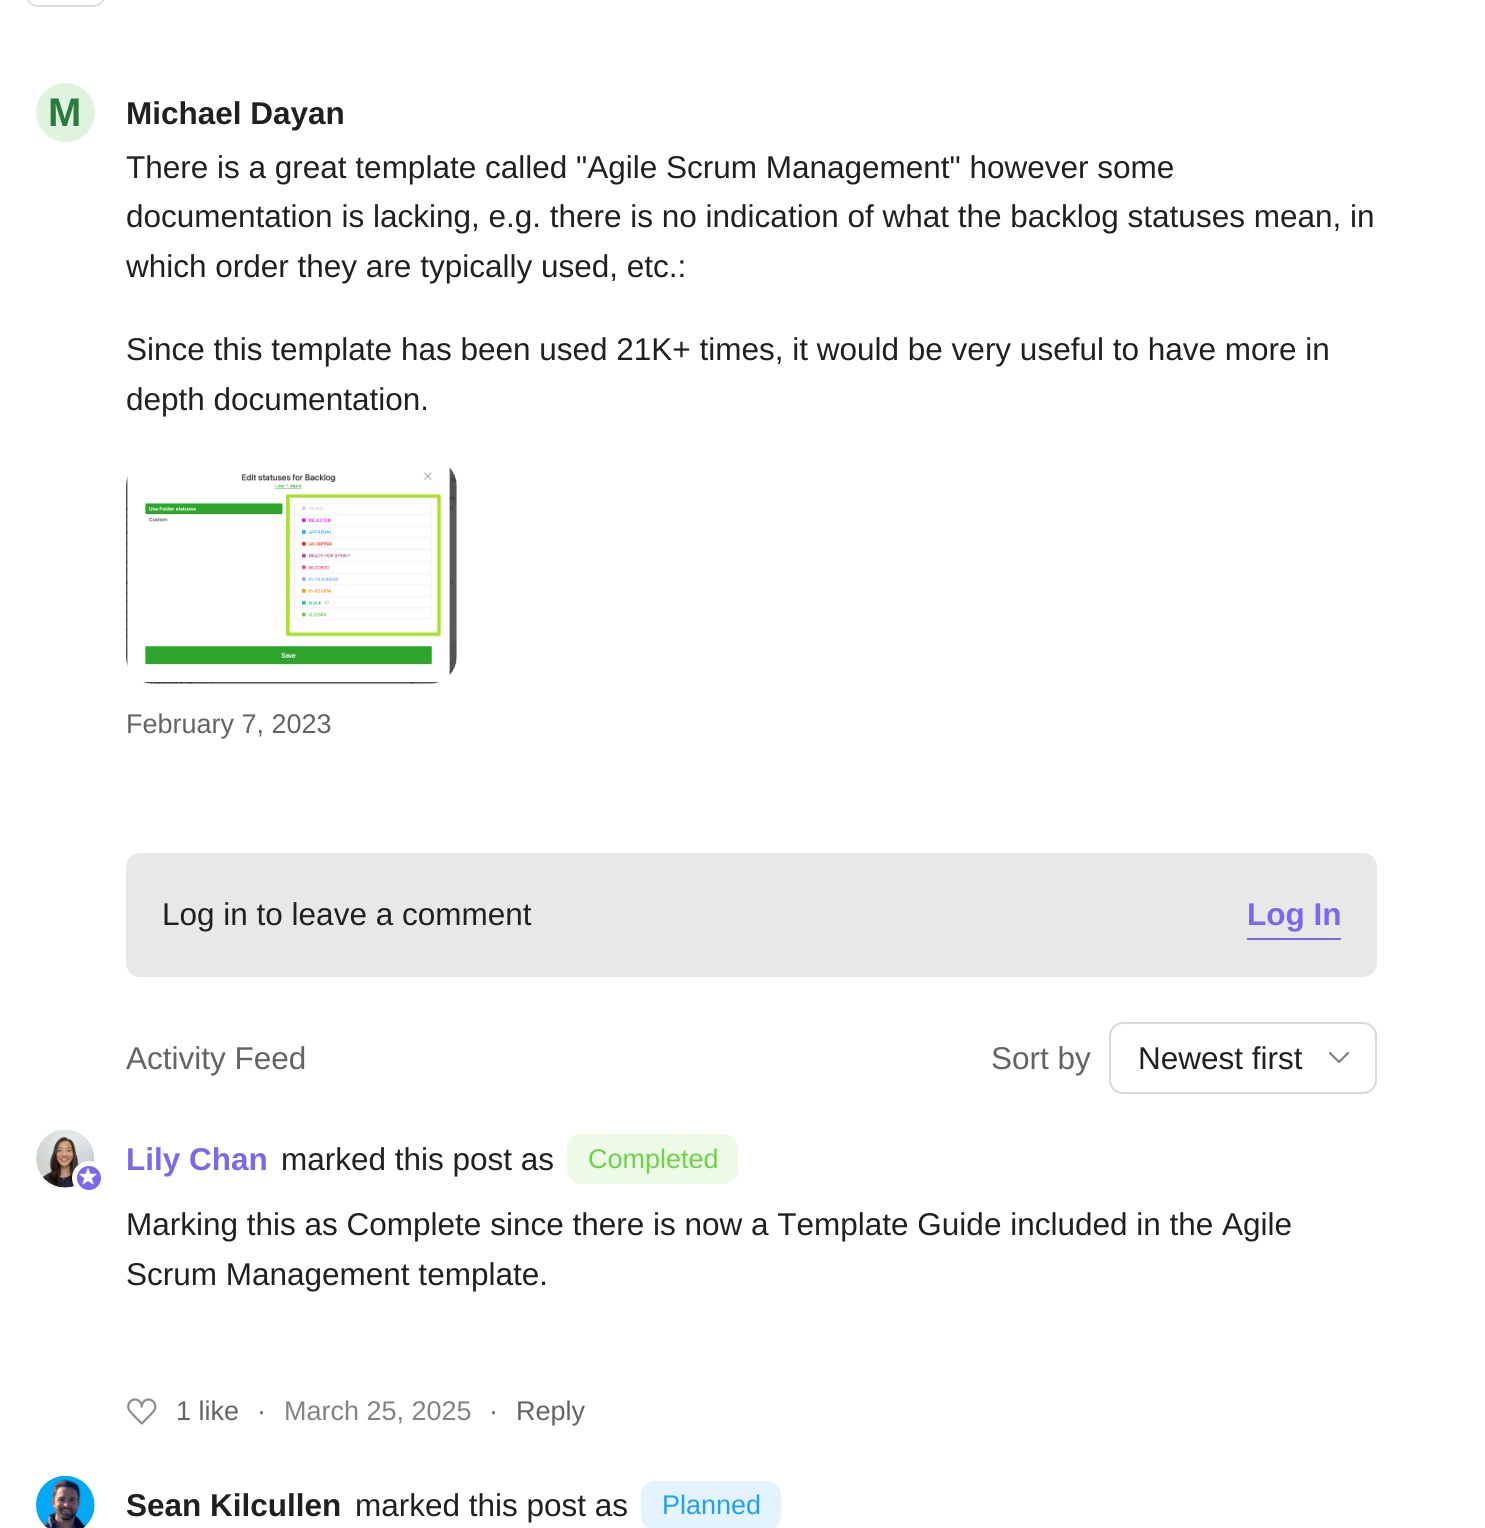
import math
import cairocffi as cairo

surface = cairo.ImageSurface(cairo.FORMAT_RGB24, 1485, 1528)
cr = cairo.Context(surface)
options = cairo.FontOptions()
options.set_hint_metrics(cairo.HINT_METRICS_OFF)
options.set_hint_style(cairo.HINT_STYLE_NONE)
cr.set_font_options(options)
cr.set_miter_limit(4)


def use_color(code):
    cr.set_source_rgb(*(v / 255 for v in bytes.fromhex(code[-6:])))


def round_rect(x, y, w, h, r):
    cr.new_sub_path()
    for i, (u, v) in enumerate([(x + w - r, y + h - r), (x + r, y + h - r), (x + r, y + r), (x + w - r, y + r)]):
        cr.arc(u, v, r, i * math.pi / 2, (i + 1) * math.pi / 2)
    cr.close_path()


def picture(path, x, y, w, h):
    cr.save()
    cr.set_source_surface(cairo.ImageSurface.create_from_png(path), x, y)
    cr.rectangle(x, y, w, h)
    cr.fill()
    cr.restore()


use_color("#ffffff")
cr.paint()
round_rect(26, -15, 79, 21, 13)
use_color("#d9d9d9")
cr.stroke()
use_color("#ffffff")
round_rect(27, -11, 77, 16, 11)
cr.fill()
use_color("#dff3df")
cr.arc(65.5, 112.5, 29.5, 0, 2 * math.pi)
cr.fill()
cr.select_font_face("Liberation Sans", cairo.FONT_SLANT_NORMAL, cairo.FONT_WEIGHT_BOLD)
cr.set_font_size(40)
use_color("#297c3b")
cr.move_to(48, 126)
cr.show_text("M")
cr.set_font_size(31.5)
use_color("#202020")
cr.move_to(126, 124)
cr.show_text("Michael Dayan")
cr.select_font_face("Liberation Sans")
cr.move_to(126, 178)
cr.show_text("There is a great template called \"Agile Scrum Management\" however some")
cr.move_to(126, 227)
cr.show_text("documentation is lacking, e.g. there is no indication of what the backlog statuses mean, in")
cr.move_to(126, 277)
cr.show_text("which order they are typically used, etc.:")
cr.move_to(126, 360)
cr.show_text("Since this template has been used 21K+ times, it would be very useful to have more in")
cr.move_to(126, 410)
cr.show_text("depth documentation.")
picture("img1.png", 126, 467, 331, 217)
cr.set_font_size(27)
use_color("#646464")
cr.move_to(126, 733)
cr.show_text("February 7, 2023")
use_color("#e8e8e8")
round_rect(126, 853, 1251, 124, 14)
cr.fill()
cr.set_font_size(31.5)
use_color("#202020")
cr.move_to(162, 925)
cr.show_text("Log in to leave a comment")
use_color("#7b68ee")
cr.rectangle(1247, 938, 94, 2)
cr.fill()
cr.select_font_face("Liberation Sans", cairo.FONT_SLANT_NORMAL, cairo.FONT_WEIGHT_BOLD)
cr.move_to(1247, 925)
cr.show_text("Log In")
cr.select_font_face("Liberation Sans")
use_color("#646464")
cr.move_to(126, 1069)
cr.show_text("Activity Feed")
cr.move_to(991, 1069)
cr.show_text("Sort by")
round_rect(1110, 1023, 266, 70, 13)
use_color("#d9d9d9")
cr.stroke()
use_color("#202020")
cr.move_to(1138, 1069)
cr.show_text("Newest first")
cr.new_path()
cr.move_to(1330, 1053)
cr.line_to(1339, 1062)
cr.line_to(1348, 1053)
use_color("#838383")
cr.set_line_width(2.2)
cr.set_line_cap(cairo.LINE_CAP_ROUND)
cr.set_line_join(cairo.LINE_JOIN_ROUND)
cr.stroke()
picture("img2.png", 36, 1129, 59, 59)
use_color("#7b68ee")
cr.arc(89, 1178, 14.5, 0, 2 * math.pi)
cr.fill_preserve()
use_color("#ffffff")
cr.set_line_width(5)
cr.set_line_cap(cairo.LINE_CAP_BUTT)
cr.set_line_join(cairo.LINE_JOIN_MITER)
cr.stroke()
picture("img3.png", 79, 1168, 19, 17)
cr.select_font_face("Liberation Sans", cairo.FONT_SLANT_NORMAL, cairo.FONT_WEIGHT_BOLD)
use_color("#7b68ee")
cr.move_to(126, 1170)
cr.show_text("Lily Chan")
cr.select_font_face("Liberation Sans")
use_color("#202020")
cr.move_to(281, 1170)
cr.show_text("marked this post as")
use_color("#edfae8")
round_rect(567, 1134, 171, 50, 14)
cr.fill()
cr.set_font_size(27)
use_color("#6cd345")
cr.move_to(588, 1168)
cr.show_text("Completed")
cr.set_font_size(31.5)
use_color("#202020")
cr.move_to(126, 1235)
cr.show_text("Marking this as Complete since there is now a Template Guide included in the Agile")
cr.move_to(126, 1285)
cr.show_text("Scrum Management template.")
picture("img4.png", 127, 1398, 30, 27)
cr.set_font_size(27)
use_color("#646464")
cr.move_to(176, 1420)
cr.show_text("1 like")
cr.move_to(257, 1420)
cr.show_text("·")
use_color("#838383")
cr.move_to(284, 1420)
cr.show_text("March 25, 2025")
use_color("#646464")
cr.move_to(489, 1420)
cr.show_text("·")
cr.move_to(516, 1420)
cr.show_text("Reply")
picture("img5.png", 36, 1476, 59, 52)
cr.select_font_face("Liberation Sans", cairo.FONT_SLANT_NORMAL, cairo.FONT_WEIGHT_BOLD)
cr.set_font_size(31.5)
use_color("#202020")
cr.move_to(126, 1516)
cr.show_text("Sean Kilcullen")
cr.select_font_face("Liberation Sans")
cr.move_to(355, 1516)
cr.show_text("marked this post as")
use_color("#e3f3ff")
round_rect(641, 1481, 140, 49, 14)
cr.fill()
cr.set_font_size(27)
use_color("#1fa0ff")
cr.move_to(662, 1514)
cr.show_text("Planned")
surface.write_to_png("result.png")
